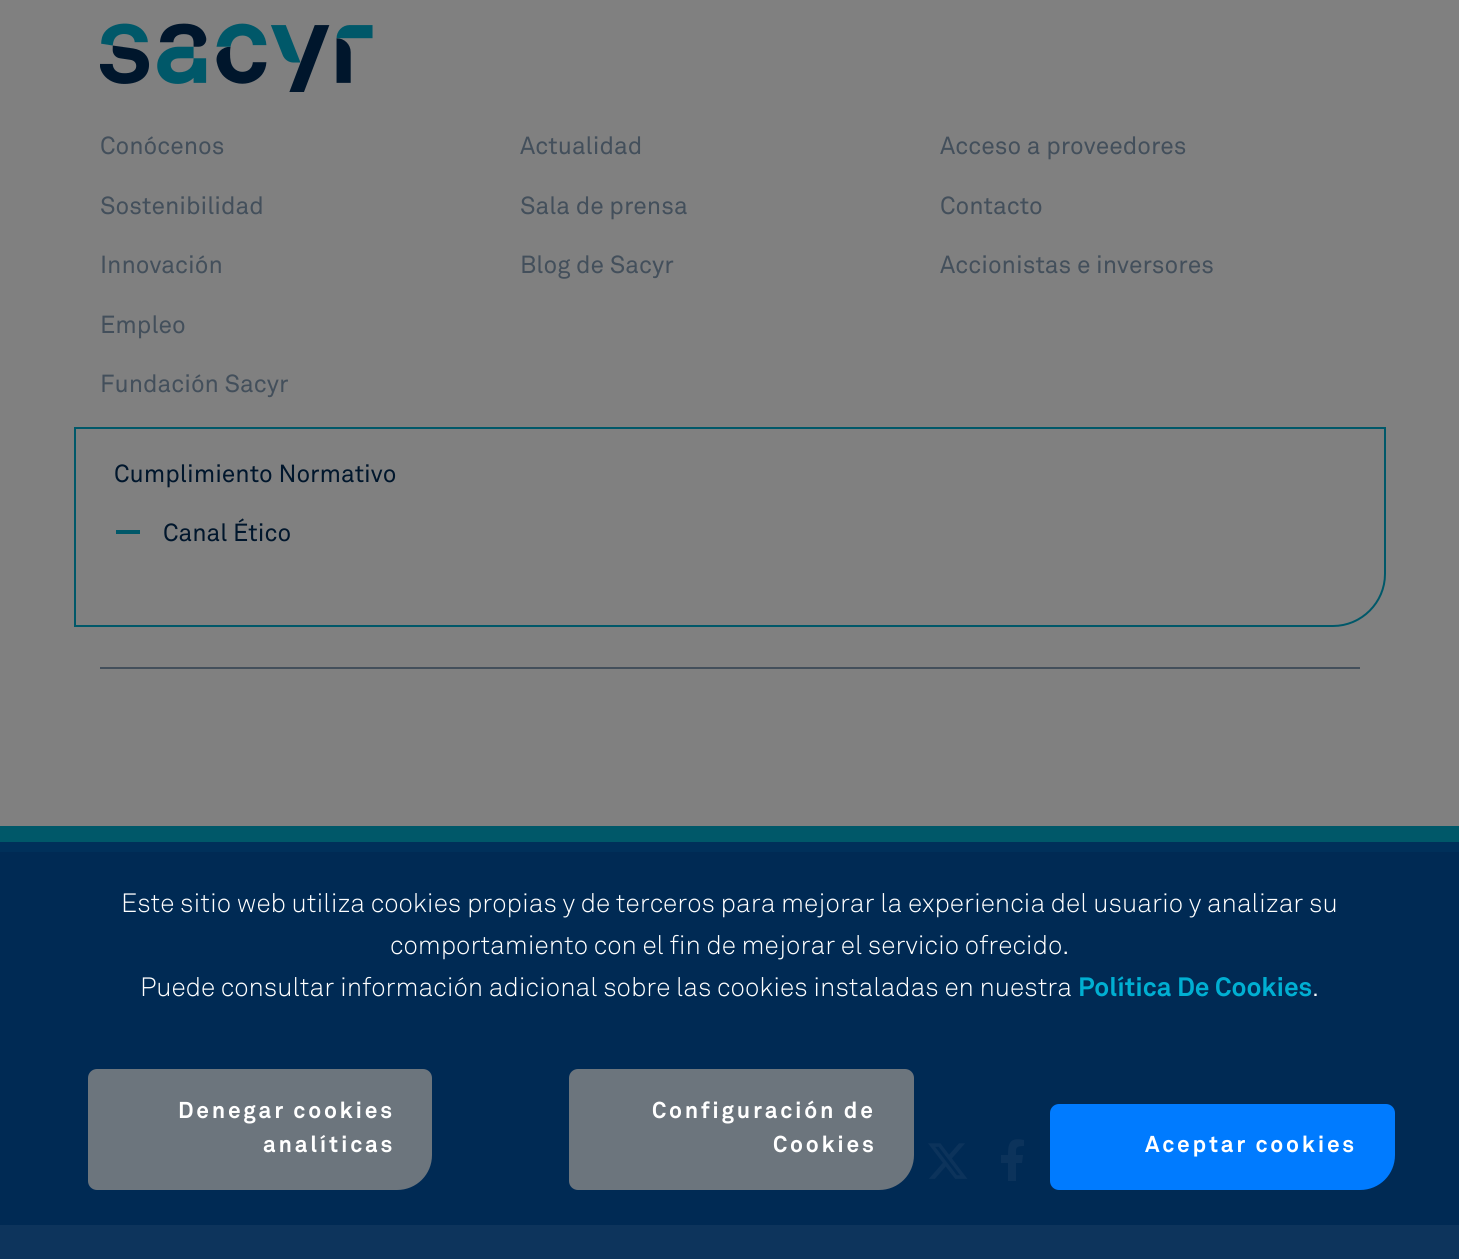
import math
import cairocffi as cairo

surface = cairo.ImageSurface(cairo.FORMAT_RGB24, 1459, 1259)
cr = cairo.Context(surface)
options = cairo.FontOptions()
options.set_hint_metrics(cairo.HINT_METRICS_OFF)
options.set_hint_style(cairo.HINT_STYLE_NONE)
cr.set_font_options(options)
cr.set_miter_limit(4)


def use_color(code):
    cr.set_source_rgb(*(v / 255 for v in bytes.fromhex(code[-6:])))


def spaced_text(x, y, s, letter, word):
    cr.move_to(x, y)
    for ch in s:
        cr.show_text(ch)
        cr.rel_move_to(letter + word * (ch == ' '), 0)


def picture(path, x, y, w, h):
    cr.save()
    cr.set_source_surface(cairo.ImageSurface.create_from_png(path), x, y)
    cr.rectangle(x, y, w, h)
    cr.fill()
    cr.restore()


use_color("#808080")
cr.paint()
use_color("#0d345c")
cr.rectangle(0, 1225, 1459, 34)
cr.fill()
picture("img1.png", 100, 23, 273, 69)
cr.select_font_face("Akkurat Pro")
cr.set_font_size(24.5)
use_color("#434f5b")
cr.move_to(100, 154)
cr.show_text("Conócenos")
cr.move_to(100, 214)
cr.show_text("Sostenibilidad")
cr.move_to(100, 273)
cr.show_text("Innovación")
cr.move_to(520, 154)
cr.show_text("Actualidad")
cr.move_to(520, 214)
cr.show_text("Sala de prensa")
cr.move_to(520, 273)
cr.show_text("Blog de Sacyr")
cr.move_to(940, 154)
cr.show_text("Acceso a proveedores")
cr.move_to(940, 214)
cr.show_text("Contacto")
cr.move_to(940, 273)
cr.show_text("Accionistas e inversores")
cr.move_to(100, 333)
cr.show_text("Empleo")
cr.move_to(100, 392)
cr.show_text("Fundación Sacyr")
cr.new_path()
cr.move_to(75, 428)
cr.line_to(1385, 428)
cr.line_to(1385, 574)
cr.curve_to(1385, 602.5, 1361.5, 626, 1333, 626)
cr.line_to(75, 626)
cr.close_path()
use_color("#005869")
cr.stroke()
use_color("#00162c")
cr.move_to(114, 482)
cr.show_text("Cumplimiento Normativo")
use_color("#005869")
cr.rectangle(116, 530, 24, 4)
cr.fill()
use_color("#00162c")
cr.move_to(163, 541)
cr.show_text("Canal Ético")
use_color("#434f5b")
cr.rectangle(100, 667, 1260, 2)
cr.fill()
use_color("#002a54")
cr.rectangle(0, 852, 1459, 373)
cr.fill()
use_color("#005869")
cr.rectangle(0, 826, 1459, 16)
cr.fill()
use_color("#00305a")
cr.rectangle(0, 842, 1459, 10)
cr.fill()
picture("img2.png", 928, 1143, 40, 36)
use_color("#0c335b")
cr.new_path()
cr.move_to(1022, 1163)
cr.line_to(1023, 1155)
cr.line_to(1016, 1155)
cr.curve_to(1016, 1148, 1015, 1146, 1024, 1146)
cr.line_to(1024, 1140)
cr.curve_to(1010, 1137, 1008, 1143, 1008, 1155)
cr.line_to(1001, 1155)
cr.line_to(1001, 1163)
cr.line_to(1008, 1163)
cr.line_to(1008, 1181)
cr.line_to(1016, 1181)
cr.line_to(1016, 1163)
cr.close_path()
cr.fill()
cr.select_font_face("Akkurat Pro Light")
cr.set_font_size(26.25)
use_color("#ffffff")
cr.move_to(121, 912)
cr.show_text("Este sitio web utiliza cookies propias y de terceros para mejorar la experiencia del usuario y analizar su")
cr.move_to(390, 954)
cr.show_text("comportamiento con el fin de mejorar el servicio ofrecido.")
cr.move_to(140, 996)
cr.show_text("Puede consultar información adicional sobre las cookies instaladas en nuestra")
cr.select_font_face("Akkurat Pro", cairo.FONT_SLANT_NORMAL, cairo.FONT_WEIGHT_BOLD)
use_color("#00afd2")
cr.move_to(1078, 996)
cr.show_text("Política De Cookies")
cr.select_font_face("Akkurat Pro Light")
use_color("#ffffff")
cr.move_to(1312, 996)
cr.show_text(".")
use_color("#6c757d")
cr.new_path()
cr.move_to(97, 1069)
cr.line_to(423, 1069)
cr.curve_to(428, 1069, 432, 1073, 432, 1078)
cr.line_to(432, 1155)
cr.curve_to(432, 1174.5, 416.5, 1190, 397, 1190)
cr.line_to(97, 1190)
cr.curve_to(92, 1190, 88, 1186, 88, 1181)
cr.line_to(88, 1078)
cr.curve_to(88, 1073, 92, 1069, 97, 1069)
cr.close_path()
cr.fill()
cr.select_font_face("Akkurat Pro", cairo.FONT_SLANT_NORMAL, cairo.FONT_WEIGHT_BOLD)
cr.set_font_size(22.75)
use_color("#ffffff")
spaced_text(178, 1118, "Denegar cookies", 2.75, 0)
spaced_text(263, 1152, "analíticas", 2.75, 0)
use_color("#6c757d")
cr.new_path()
cr.move_to(578, 1069)
cr.line_to(905, 1069)
cr.curve_to(910, 1069, 914, 1073, 914, 1078)
cr.line_to(914, 1155)
cr.curve_to(914, 1174.5, 898.5, 1190, 879, 1190)
cr.line_to(578, 1190)
cr.curve_to(573, 1190, 569, 1186, 569, 1181)
cr.line_to(569, 1078)
cr.curve_to(569, 1073, 573, 1069, 578, 1069)
cr.close_path()
cr.fill()
use_color("#ffffff")
spaced_text(652, 1118, "Configuración de", 2.75, 0)
spaced_text(773, 1152, "Cookies", 2.75, 0)
use_color("#007bff")
cr.new_path()
cr.move_to(1059, 1104)
cr.line_to(1386, 1104)
cr.curve_to(1391, 1104, 1395, 1108, 1395, 1113)
cr.line_to(1395, 1155)
cr.curve_to(1395, 1174.5, 1379.5, 1190, 1360, 1190)
cr.line_to(1059, 1190)
cr.curve_to(1054, 1190, 1050, 1186, 1050, 1181)
cr.line_to(1050, 1113)
cr.curve_to(1050, 1108, 1054, 1104, 1059, 1104)
cr.close_path()
cr.fill()
use_color("#ffffff")
spaced_text(1145, 1152, "Aceptar cookies", 2.75, 0)
surface.write_to_png("result.png")
